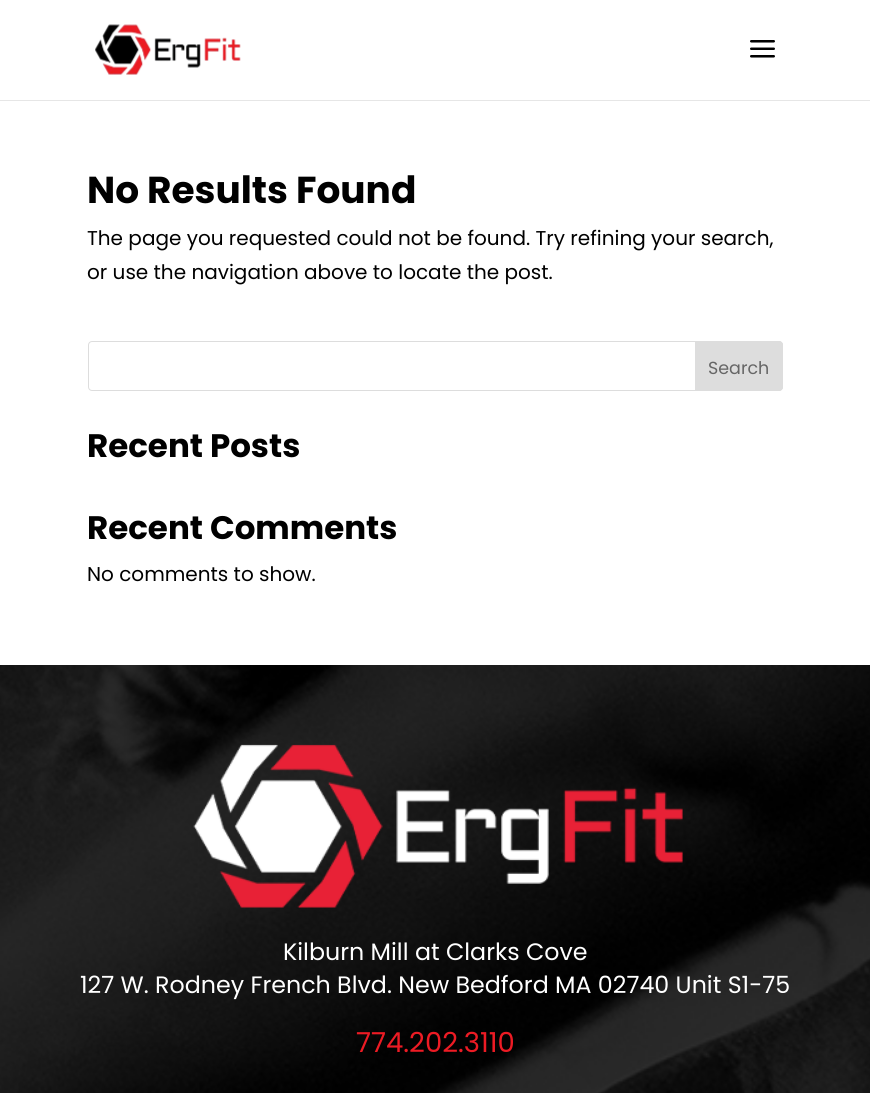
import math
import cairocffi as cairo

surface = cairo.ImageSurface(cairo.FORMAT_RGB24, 870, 1093)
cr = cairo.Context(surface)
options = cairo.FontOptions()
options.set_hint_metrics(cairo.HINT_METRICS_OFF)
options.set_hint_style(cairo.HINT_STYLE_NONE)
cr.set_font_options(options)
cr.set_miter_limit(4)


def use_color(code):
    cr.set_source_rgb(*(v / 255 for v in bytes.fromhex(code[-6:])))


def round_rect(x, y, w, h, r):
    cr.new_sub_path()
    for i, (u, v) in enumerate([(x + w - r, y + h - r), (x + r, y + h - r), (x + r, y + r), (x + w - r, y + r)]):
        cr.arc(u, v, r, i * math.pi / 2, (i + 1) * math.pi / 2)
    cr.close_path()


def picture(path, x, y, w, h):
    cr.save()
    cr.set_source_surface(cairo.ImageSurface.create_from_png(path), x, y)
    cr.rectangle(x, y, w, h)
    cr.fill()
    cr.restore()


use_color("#ffffff")
cr.paint()
use_color("#e6e6e6")
cr.rectangle(0, 100, 870, 1)
cr.fill()
picture("img1.png", 95, 24, 146, 51)
picture("img2.png", 750, 40, 25, 18)
cr.select_font_face("Poppins", cairo.FONT_SLANT_NORMAL, cairo.FONT_WEIGHT_BOLD)
cr.set_font_size(37.5)
use_color("#000000")
cr.move_to(87, 203)
cr.show_text("No Results Found")
cr.select_font_face("Poppins")
cr.set_font_size(20)
cr.move_to(87, 245)
cr.show_text("The page you requested could not be found. Try refining your search,")
cr.move_to(87, 279)
cr.show_text("or use the navigation above to locate the post.")
round_rect(88.5, 341.5, 694, 49, 3.5)
use_color("#dddddd")
cr.set_line_width(1)
cr.stroke()
cr.new_path()
cr.move_to(695.5, 341.5)
cr.line_to(779, 341.5)
cr.curve_to(781, 341.5, 782.5, 343, 782.5, 345)
cr.line_to(782.5, 387)
cr.curve_to(782.5, 389, 781, 390.5, 779, 390.5)
cr.line_to(695.5, 390.5)
cr.close_path()
cr.fill_preserve()
cr.stroke()
cr.set_font_size(17.5)
use_color("#666666")
cr.move_to(708, 374)
cr.show_text("Search")
cr.select_font_face("Poppins", cairo.FONT_SLANT_NORMAL, cairo.FONT_WEIGHT_BOLD)
cr.set_font_size(32.5)
use_color("#000000")
cr.move_to(87, 457)
cr.show_text("Recent Posts")
cr.move_to(87, 539)
cr.show_text("Recent Comments")
cr.select_font_face("Poppins")
cr.set_font_size(20)
cr.move_to(87, 581)
cr.show_text("No comments to show.")
picture("img3.png", 0, 665, 870, 428)
picture("img4.png", 193, 744, 490, 164)
cr.set_font_size(23.75)
use_color("#ffffff")
cr.move_to(283, 960)
cr.show_text("Kilburn Mill at Clarks Cove")
cr.move_to(80, 993)
cr.show_text("127 W. Rodney French Blvd. New Bedford MA 02740 Unit S1-75")
cr.set_font_size(27.5)
use_color("#ed1b24")
cr.move_to(356, 1052)
cr.show_text("774.202.3110")
surface.write_to_png("result.png")
